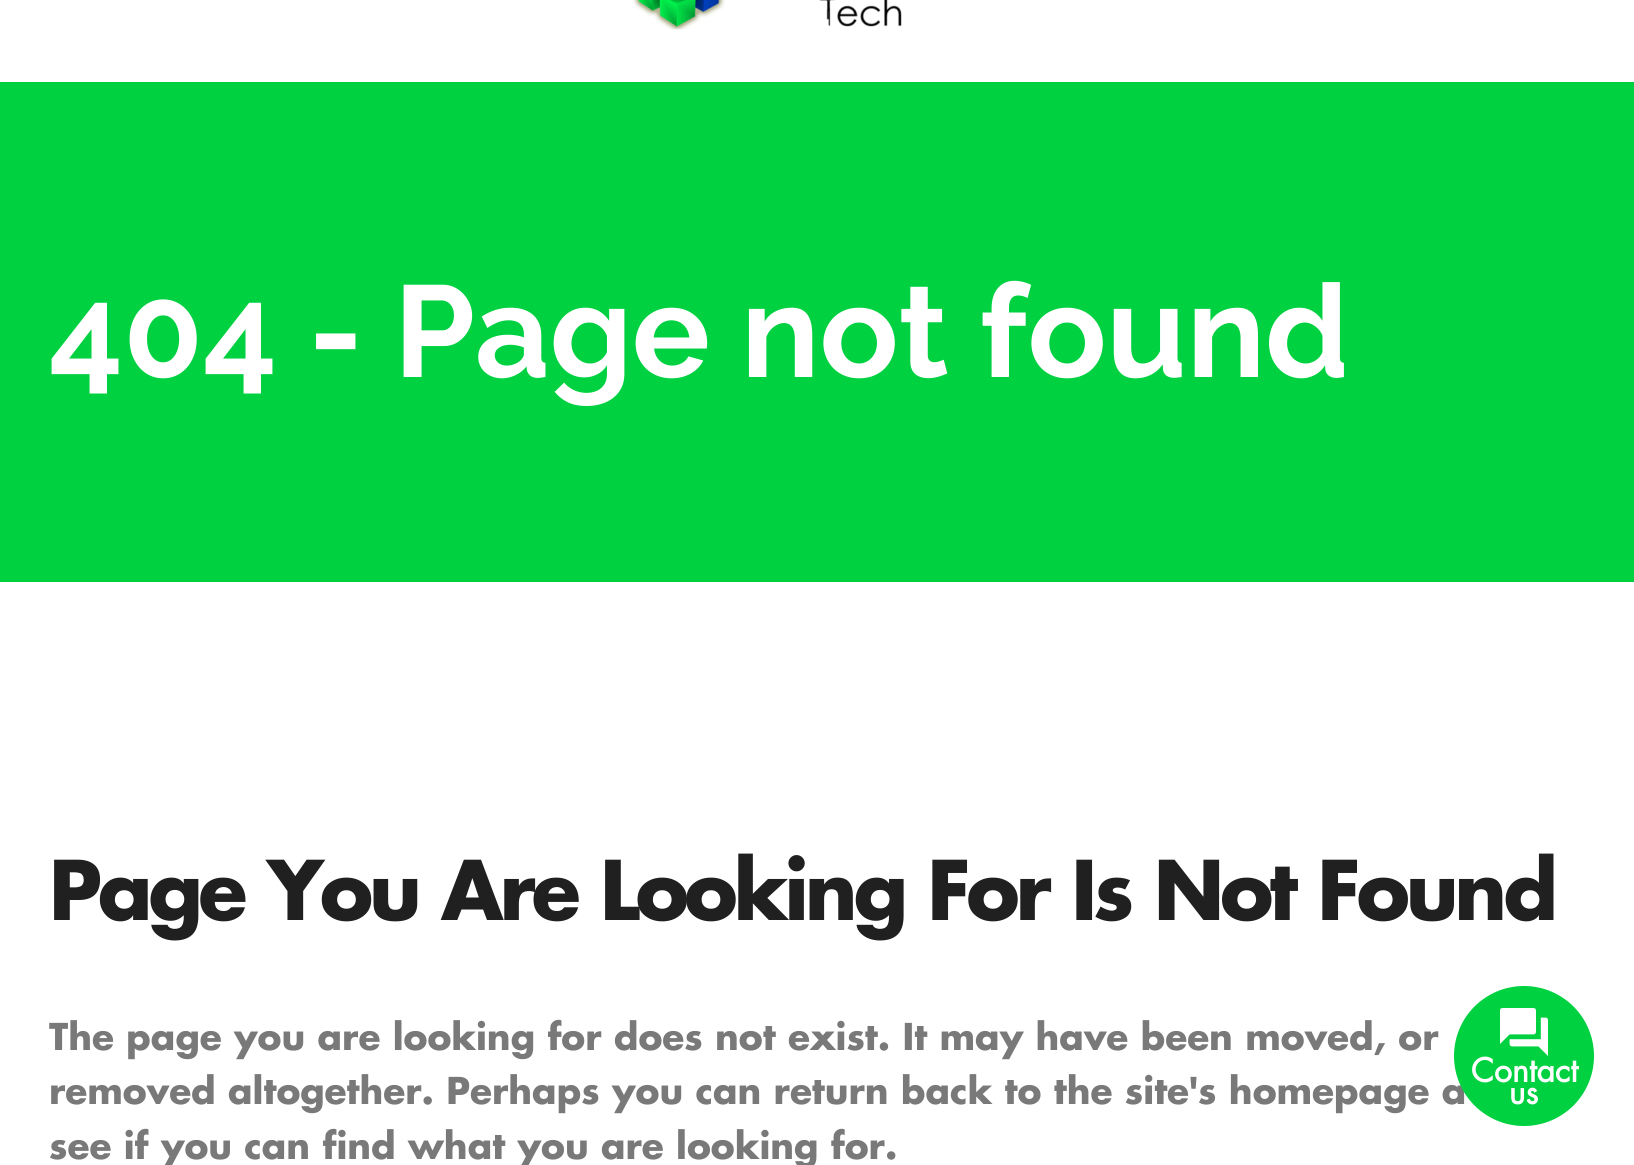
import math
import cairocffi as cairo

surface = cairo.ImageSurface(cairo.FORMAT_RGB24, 1634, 1165)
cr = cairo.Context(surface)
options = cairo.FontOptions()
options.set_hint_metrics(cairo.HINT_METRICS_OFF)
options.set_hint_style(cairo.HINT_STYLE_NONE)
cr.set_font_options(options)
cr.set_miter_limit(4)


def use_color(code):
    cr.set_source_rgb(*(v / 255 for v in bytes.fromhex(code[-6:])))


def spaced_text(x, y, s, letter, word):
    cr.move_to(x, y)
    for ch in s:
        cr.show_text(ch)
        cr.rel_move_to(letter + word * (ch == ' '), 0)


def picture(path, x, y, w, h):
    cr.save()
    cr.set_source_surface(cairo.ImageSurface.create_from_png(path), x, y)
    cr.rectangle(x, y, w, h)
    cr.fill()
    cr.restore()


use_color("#ffffff")
cr.paint()
picture("img1.png", 633, 0, 269, 30)
use_color("#00d140")
cr.rectangle(0, 82, 1634, 500)
cr.fill()
cr.select_font_face("Raleway", cairo.FONT_SLANT_NORMAL, cairo.FONT_WEIGHT_BOLD)
cr.set_font_size(130)
use_color("#ffffff")
cr.move_to(49, 377)
cr.show_text("404 - Page not found")
cr.select_font_face("Futura", cairo.FONT_SLANT_NORMAL, cairo.FONT_WEIGHT_BOLD)
cr.set_font_size(80)
use_color("#202020")
spaced_text(49, 920, "Page You Are Looking For Is Not Found", -4, 0)
cr.set_font_size(36)
use_color("#797979")
cr.move_to(49, 1050)
cr.show_text("The page you are looking for does not exist. It may have been moved, or")
cr.move_to(49, 1104)
cr.show_text("removed altogether. Perhaps you can return back to the site's homepage a")
cr.move_to(49, 1159)
cr.show_text("see if you can find what you are looking for.")
use_color("#00d140")
cr.new_path()
cr.arc(1524, 1056, 70, 0, 2 * math.pi)
cr.fill()
picture("img2.png", 1500, 1008, 48, 48)
cr.select_font_face("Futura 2", cairo.FONT_SLANT_NORMAL, cairo.FONT_WEIGHT_BOLD)
cr.set_font_size(32)
use_color("#ffffff")
cr.move_to(1471, 1082)
cr.show_text("Contact")
cr.move_to(1509, 1104)
cr.show_text("us")
surface.write_to_png("result.png")
